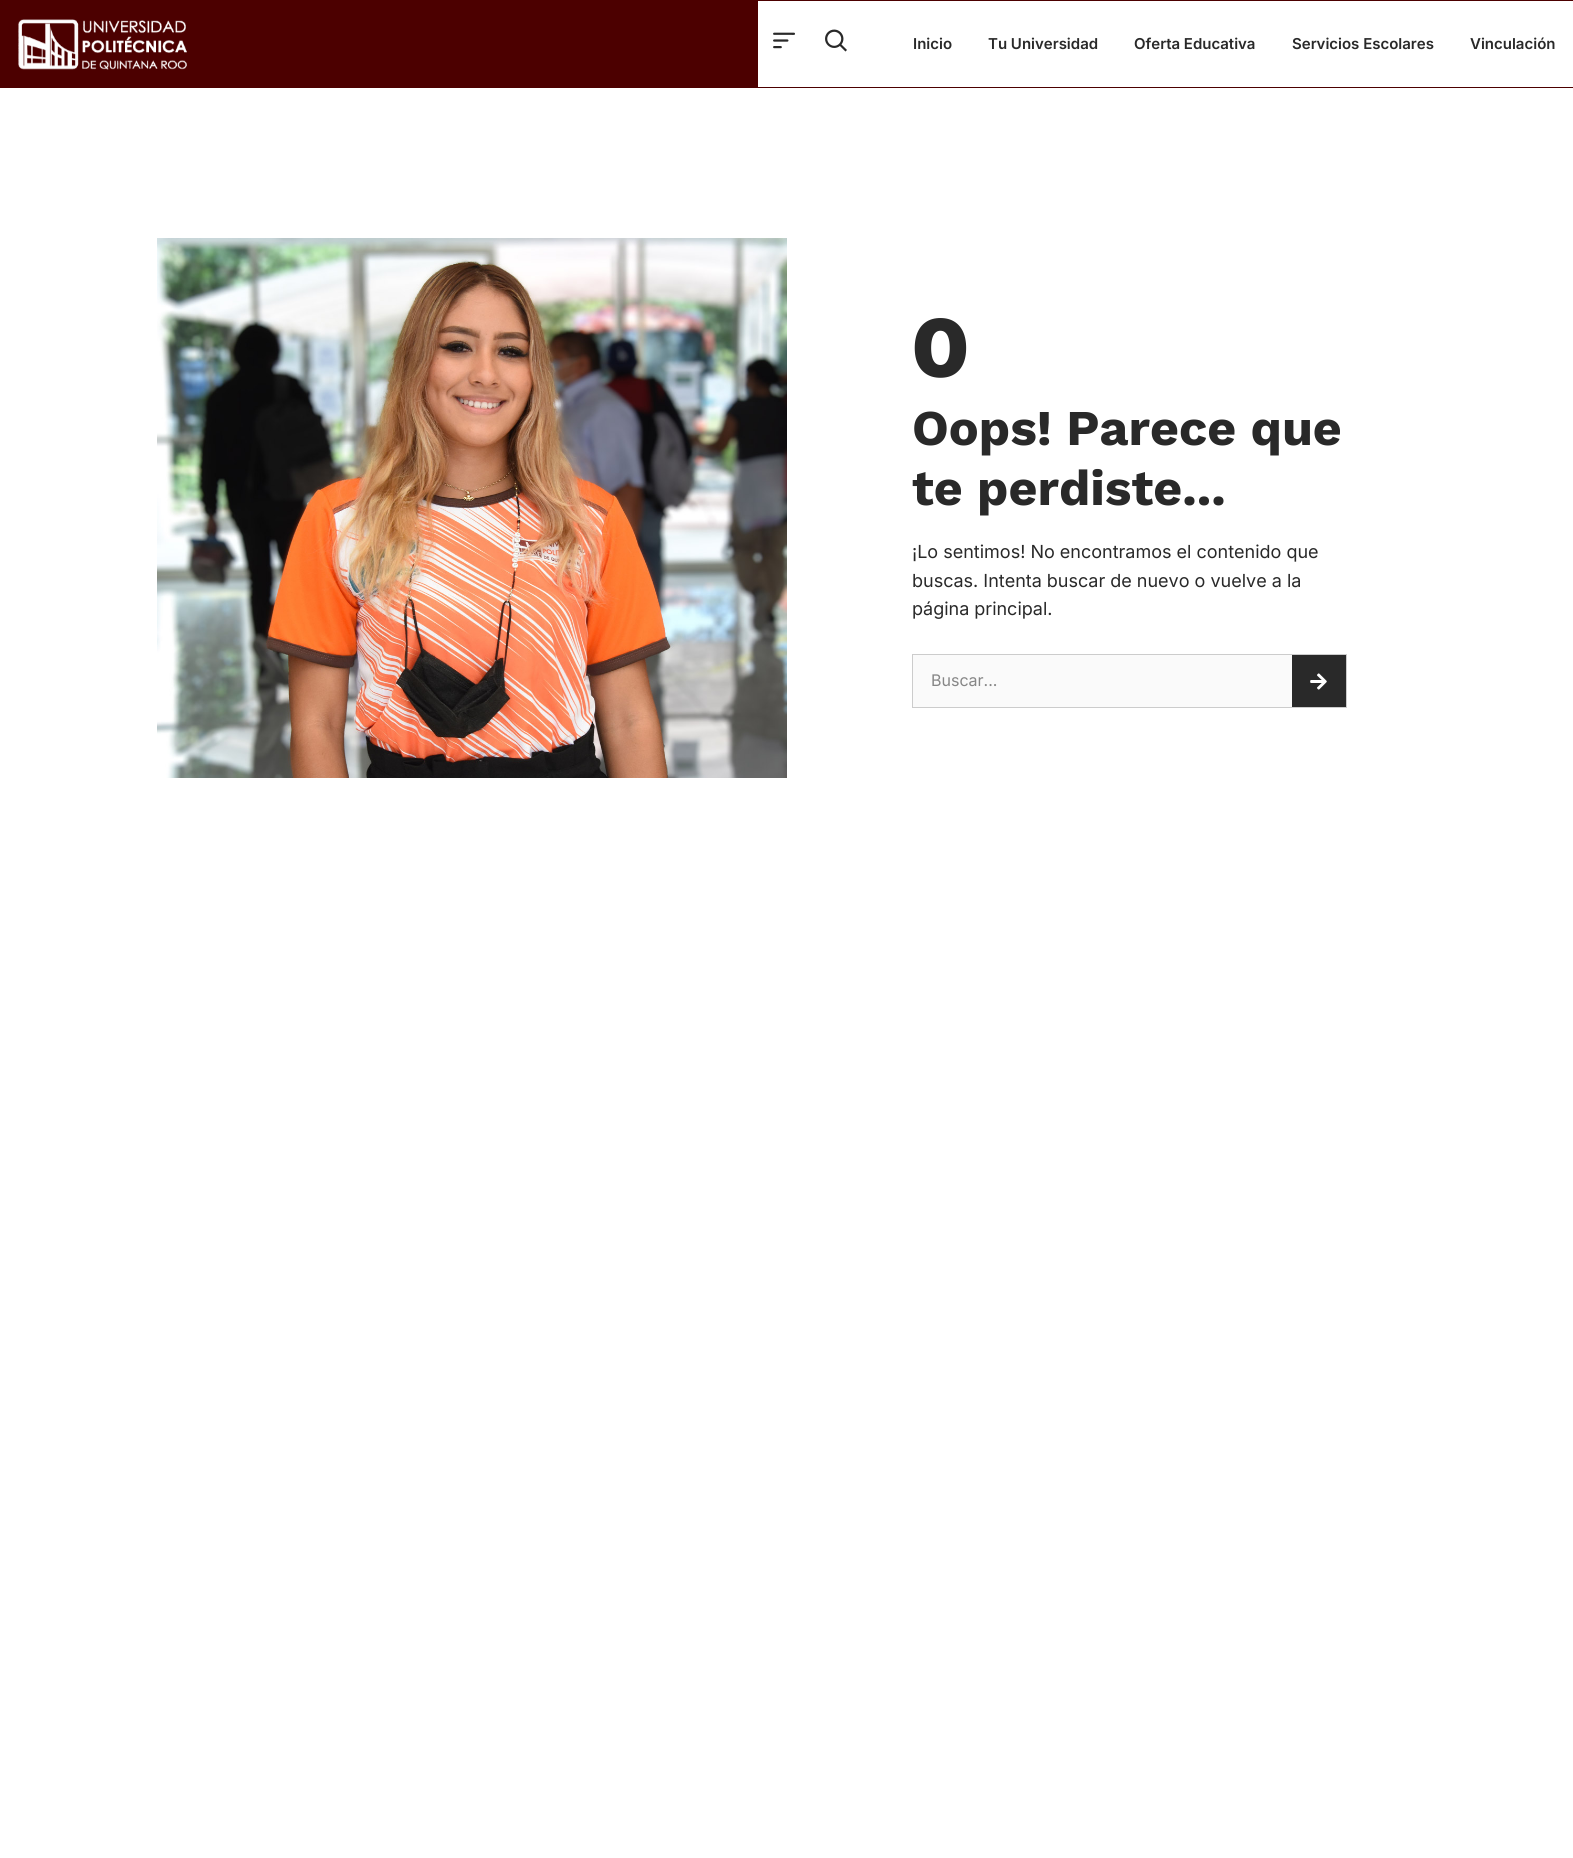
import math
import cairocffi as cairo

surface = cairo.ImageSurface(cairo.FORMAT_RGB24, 1573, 1858)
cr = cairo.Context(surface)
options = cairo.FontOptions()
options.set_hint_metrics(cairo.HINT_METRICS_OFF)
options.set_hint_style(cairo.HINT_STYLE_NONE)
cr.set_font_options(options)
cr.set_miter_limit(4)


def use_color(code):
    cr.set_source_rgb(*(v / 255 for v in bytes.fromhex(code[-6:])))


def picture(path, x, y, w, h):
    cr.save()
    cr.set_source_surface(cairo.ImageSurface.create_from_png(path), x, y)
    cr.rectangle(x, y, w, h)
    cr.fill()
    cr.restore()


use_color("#ffffff")
cr.paint()
use_color("#4c0000")
cr.rectangle(0, 0, 1573, 88)
cr.fill()
picture("img1.png", 18, 19, 169, 51)
use_color("#ffffff")
cr.rectangle(758, 1, 117, 86)
cr.fill()
picture("img2.png", 773, 32, 22, 17)
picture("img3.png", 825, 29, 22, 23)
cr.rectangle(875, 1, 698, 86)
cr.fill()
cr.select_font_face("Inter SemiBold")
cr.set_font_size(15)
use_color("#292929")
cr.move_to(913, 49)
cr.show_text("Inicio")
cr.move_to(988, 49)
cr.show_text("Tu Universidad")
cr.move_to(1134, 49)
cr.show_text("Oferta Educativa")
cr.move_to(1292, 49)
cr.show_text("Servicios Escolares")
cr.move_to(1470, 49)
cr.show_text("Vinculación")
picture("img4.png", 157, 238, 630, 540)
cr.select_font_face("Inter Black")
cr.set_font_size(80)
cr.move_to(912, 377)
cr.show_text("0")
cr.select_font_face("Work Sans", cairo.FONT_SLANT_NORMAL, cairo.FONT_WEIGHT_BOLD)
cr.set_font_size(50)
cr.move_to(912, 445)
cr.show_text("Oops! Parece que")
cr.move_to(912, 505)
cr.show_text("te perdiste...")
cr.select_font_face("Inter")
cr.set_font_size(18)
cr.move_to(912, 558)
cr.show_text("¡Lo sentimos! No encontramos el contenido que")
cr.move_to(912, 587)
cr.show_text("buscas. Intenta buscar de nuevo o vuelve a la")
cr.move_to(912, 615)
cr.show_text("página principal.")
cr.rectangle(912.5, 654.5, 434, 53)
use_color("#cccccc")
cr.set_line_width(1)
cr.stroke()
use_color("#fafafa")
cr.rectangle(913, 655, 379, 52)
cr.fill()
cr.set_font_size(16)
use_color("#868686")
cr.move_to(931, 686)
cr.show_text("Buscar...")
use_color("#292929")
cr.rectangle(1292, 655, 54, 52)
cr.fill()
picture("img5.png", 1310, 673, 17, 17)
surface.write_to_png("result.png")
